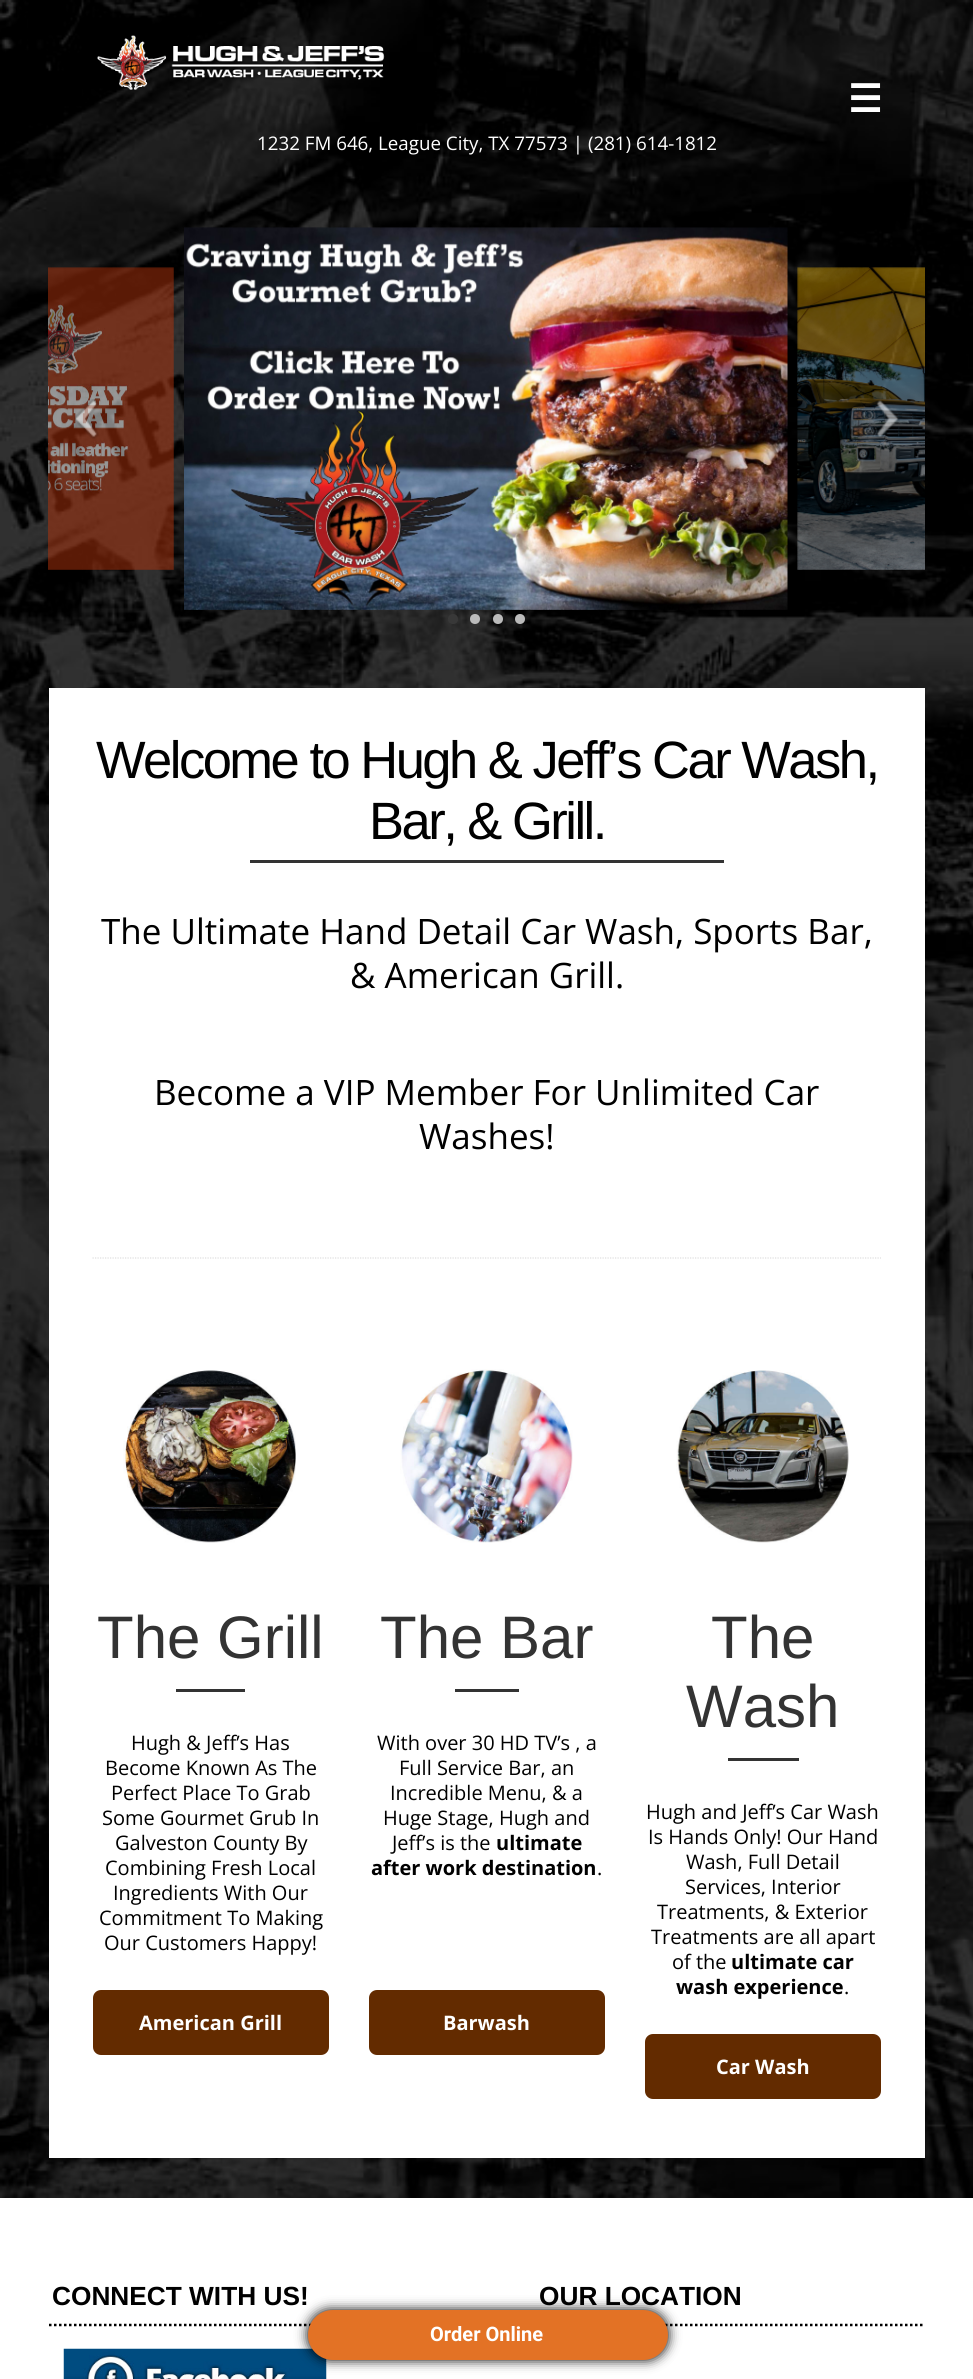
import math
import cairocffi as cairo

surface = cairo.ImageSurface(cairo.FORMAT_RGB24, 973, 2379)
cr = cairo.Context(surface)
options = cairo.FontOptions()
options.set_hint_metrics(cairo.HINT_METRICS_OFF)
options.set_hint_style(cairo.HINT_STYLE_NONE)
cr.set_font_options(options)
cr.set_miter_limit(4)


def use_color(code):
    cr.set_source_rgb(*(v / 255 for v in bytes.fromhex(code[-6:])))


def spaced_text(x, y, s, letter, word):
    cr.move_to(x, y)
    for ch in s:
        cr.show_text(ch)
        cr.rel_move_to(letter + word * (ch == ' '), 0)


def round_rect(x, y, w, h, r):
    cr.new_sub_path()
    for i, (u, v) in enumerate([(x + w - r, y + h - r), (x + r, y + h - r), (x + r, y + r), (x + w - r, y + r)]):
        cr.arc(u, v, r, i * math.pi / 2, (i + 1) * math.pi / 2)
    cr.close_path()


def shadow(x, y, w, h, r, blur, alpha):
    cr.push_group_with_content(cairo.CONTENT_ALPHA)
    cr.set_operator(cairo.OPERATOR_SOURCE)
    for i in range(15, -16, -2):
        e = blur * i / 6
        if min(w, h) + 2 * e > 0:
            cr.set_source_rgba(0, 0, 0, alpha * math.erfc((i - 1) / 8.5) / 2)
            round_rect(x - e, y - e, w + 2 * e, h + 2 * e, max(0, min(r + e + blur * .6, min(w, h) / 2 + e)))
            cr.fill()
    cr.mask(cr.pop_group())


def picture(path, x, y, w, h):
    cr.save()
    cr.set_source_surface(cairo.ImageSurface.create_from_png(path), x, y)
    cr.rectangle(x, y, w, h)
    cr.fill()
    cr.restore()


use_color("#ffffff")
cr.paint()
picture("img1.png", 0, 0, 973, 2198)
picture("img2.png", 97, 35, 288, 55)
cr.select_font_face("DejaVu Sans", cairo.FONT_SLANT_NORMAL, cairo.FONT_WEIGHT_BOLD)
cr.set_font_size(38)
use_color("#ffffff")
cr.move_to(848, 112)
cr.show_text("☰")
cr.select_font_face("Open Sans")
cr.set_font_size(18.75)
cr.move_to(257, 150)
cr.show_text("1232 FM 646, League City, TX 77573 | (281) 614-1812")
picture("img3.png", 48, 267, 126, 303)
picture("img4.png", 184, 227, 604, 383)
picture("img5.png", 797, 267, 128, 303)
picture("img6.png", 74, 399, 25, 40)
picture("img7.png", 875, 399, 25, 39)
use_color("#383838")
cr.arc(453, 619, 5, 0, 2 * math.pi)
cr.fill()
use_color("#bbbbbb")
cr.arc(475, 619, 5, 0, 2 * math.pi)
cr.fill()
cr.arc(498, 619, 5, 0, 2 * math.pi)
cr.fill()
cr.arc(520, 619, 5, 0, 2 * math.pi)
cr.fill()
use_color("#ffffff")
cr.rectangle(49, 688, 876, 1470)
cr.fill()
cr.select_font_face("Liberation Sans")
cr.set_font_size(52.5)
use_color("#000000")
spaced_text(96, 778, "Welcome to Hugh & Jeff’s Car Wash,", -2.5, 0)
spaced_text(369, 839, "Bar, & Grill.", -2.5, 0)
use_color("#333333")
cr.rectangle(250, 860, 474, 3)
cr.fill()
cr.select_font_face("Open Sans")
cr.set_font_size(35)
use_color("#000000")
cr.move_to(101, 944)
cr.show_text("The Ultimate Hand Detail Car Wash, Sports Bar,")
cr.move_to(350, 988)
cr.show_text("& American Grill.")
cr.move_to(154, 1105)
cr.show_text("Become a VIP Member For Unlimited Car")
cr.move_to(419, 1149)
cr.show_text("Washes!")
cr.new_path()
cr.move_to(92.5, 1258)
cr.line_to(881, 1258)
use_color("#dedede")
cr.set_line_width(1.2)
cr.set_dash([1.25, 1.25])
cr.stroke()
picture("img8.png", 123, 1370, 173, 173)
cr.select_font_face("Liberation Sans")
cr.set_font_size(60)
use_color("#333333")
cr.move_to(97, 1658)
cr.show_text("The Grill")
cr.rectangle(176, 1689, 69, 3)
cr.fill()
cr.select_font_face("Open Sans")
cr.set_font_size(20)
use_color("#000000")
cr.move_to(131, 1750)
cr.show_text("Hugh & Jeff’s Has")
cr.move_to(105, 1775)
cr.show_text("Become Known As The")
cr.move_to(111, 1800)
cr.show_text("Perfect Place To Grab")
cr.move_to(102, 1825)
cr.show_text("Some Gourmet Grub In")
cr.move_to(115, 1850)
cr.show_text("Galveston County By")
cr.move_to(105, 1875)
cr.show_text("Combining Fresh Local")
cr.move_to(113, 1900)
cr.show_text("Ingredients With Our")
cr.move_to(99, 1925)
cr.show_text("Commitment To Making")
cr.move_to(104, 1950)
cr.show_text("Our Customers Happy!")
use_color("#632b00")
round_rect(93, 1990, 236, 65, 8)
cr.fill()
cr.select_font_face("Open Sans", cairo.FONT_SLANT_NORMAL, cairo.FONT_WEIGHT_BOLD)
use_color("#ffffff")
cr.move_to(139, 2030)
cr.show_text("American Grill")
picture("img9.png", 400, 1369, 173, 174)
cr.select_font_face("Liberation Sans")
cr.set_font_size(60)
use_color("#333333")
cr.move_to(380, 1658)
cr.show_text("The Bar")
cr.rectangle(455, 1689, 64, 3)
cr.fill()
cr.select_font_face("Open Sans")
cr.set_font_size(20)
use_color("#000000")
cr.move_to(377, 1750)
cr.show_text("With over 30 HD TV’s , a")
cr.move_to(399, 1775)
cr.show_text("Full Service Bar, an")
cr.move_to(390, 1800)
cr.show_text("Incredible Menu, & a")
cr.move_to(383, 1825)
cr.show_text("Huge Stage, Hugh and")
cr.move_to(392, 1850)
cr.show_text("Jeff’s is the")
cr.select_font_face("Open Sans", cairo.FONT_SLANT_NORMAL, cairo.FONT_WEIGHT_BOLD)
cr.move_to(496, 1850)
cr.show_text("ultimate")
cr.move_to(371, 1875)
cr.show_text("after work destination")
cr.select_font_face("Open Sans")
cr.move_to(597, 1875)
cr.show_text(".")
use_color("#632b00")
round_rect(369, 1990, 236, 65, 8)
cr.fill()
cr.select_font_face("Open Sans", cairo.FONT_SLANT_NORMAL, cairo.FONT_WEIGHT_BOLD)
use_color("#ffffff")
cr.move_to(443, 2030)
cr.show_text("Barwash")
picture("img10.png", 676, 1370, 173, 173)
cr.select_font_face("Liberation Sans")
cr.set_font_size(60)
use_color("#333333")
cr.move_to(711, 1658)
cr.show_text("The")
cr.move_to(686, 1727)
cr.show_text("Wash")
cr.rectangle(728, 1758, 71, 3)
cr.fill()
cr.select_font_face("Open Sans")
cr.set_font_size(20)
use_color("#000000")
cr.move_to(646, 1819)
cr.show_text("Hugh and Jeff’s Car Wash")
cr.move_to(648, 1844)
cr.show_text("Is Hands Only! Our Hand")
cr.move_to(686, 1869)
cr.show_text("Wash, Full Detail")
cr.move_to(685, 1894)
cr.show_text("Services, Interior")
cr.move_to(657, 1919)
cr.show_text("Treatments, & Exterior")
cr.move_to(651, 1944)
cr.show_text("Treatments are all apart")
cr.move_to(672, 1969)
cr.show_text("of the")
cr.select_font_face("Open Sans", cairo.FONT_SLANT_NORMAL, cairo.FONT_WEIGHT_BOLD)
cr.move_to(731, 1969)
cr.show_text("ultimate car")
cr.move_to(676, 1994)
cr.show_text("wash experience")
cr.select_font_face("Open Sans")
cr.move_to(844, 1994)
cr.show_text(".")
use_color("#632b00")
round_rect(645, 2034, 236, 65, 8)
cr.fill()
cr.select_font_face("Open Sans", cairo.FONT_SLANT_NORMAL, cairo.FONT_WEIGHT_BOLD)
use_color("#ffffff")
cr.move_to(716, 2074)
cr.show_text("Car Wash")
cr.new_path()
cr.move_to(49, 2325)
cr.line_to(311, 2325)
use_color("#000000")
cr.set_line_width(2.5)
cr.set_dash([2.5, 2.5])
cr.stroke()
cr.select_font_face("Liberation Sans", cairo.FONT_SLANT_NORMAL, cairo.FONT_WEIGHT_BOLD)
cr.set_font_size(26.25)
cr.move_to(52, 2305)
cr.show_text("CONNECT WITH US!")
picture("img11.png", 63, 2348, 264, 31)
cr.new_path()
cr.move_to(355, 2325)
cr.line_to(925, 2325)
cr.stroke()
cr.move_to(539, 2305)
cr.show_text("OUR LOCATION")
use_color("#000000")
shadow(308, 2310, 360, 50, 25, 6, 1)
use_color("#e37225")
round_rect(308, 2310, 360, 50, 25)
cr.fill()
cr.select_font_face("Roboto", cairo.FONT_SLANT_NORMAL, cairo.FONT_WEIGHT_BOLD)
cr.set_font_size(20)
use_color("#ffffff")
cr.move_to(430, 2341)
cr.show_text("Order Online")
surface.write_to_png("result.png")
